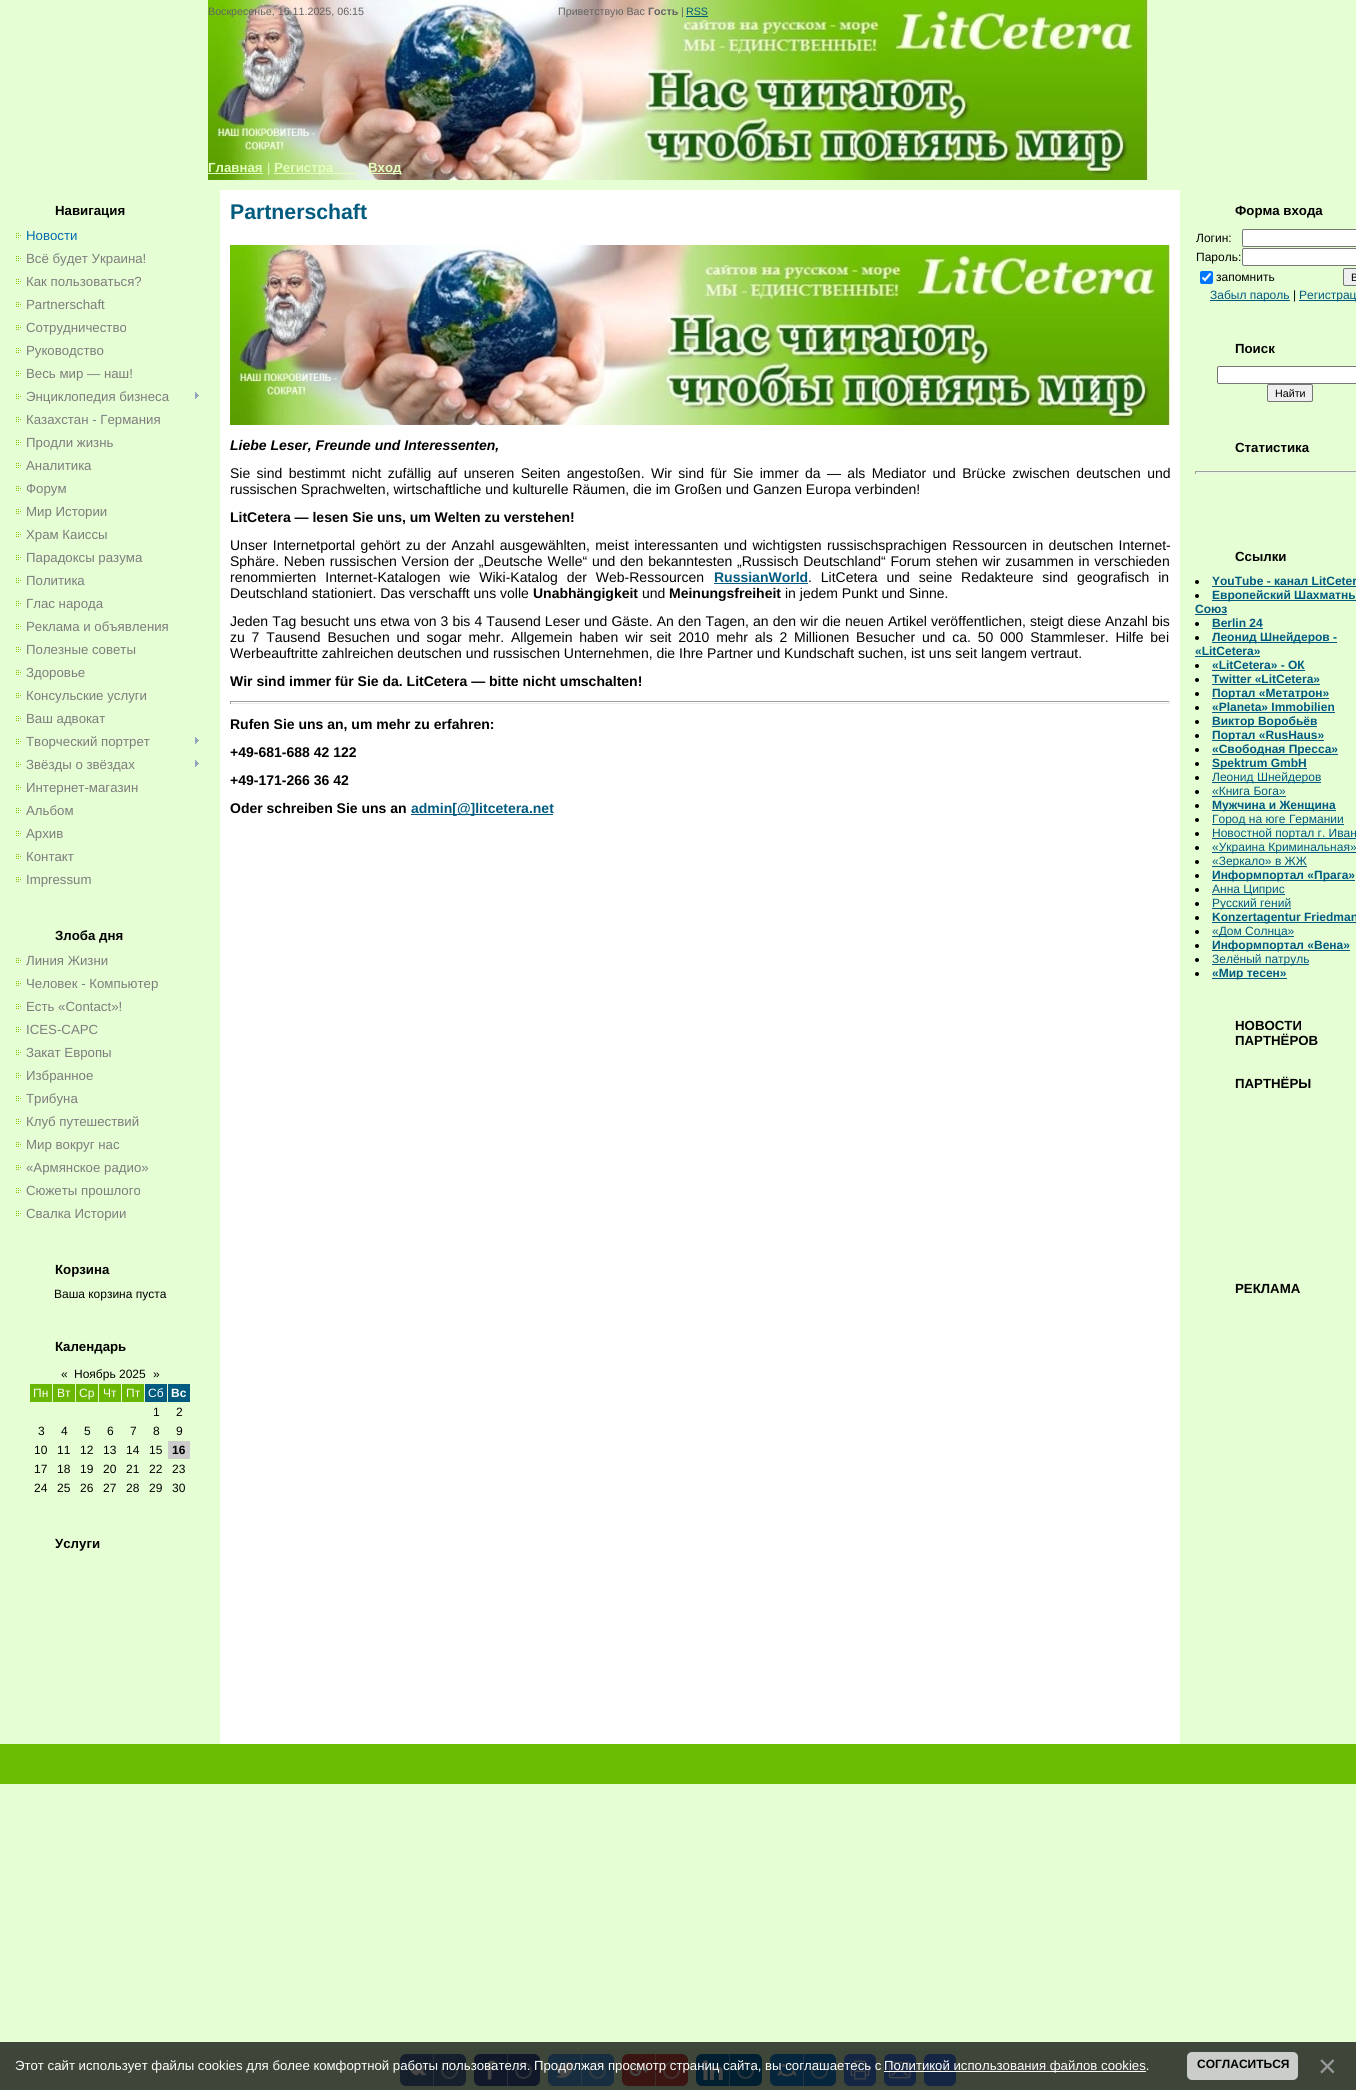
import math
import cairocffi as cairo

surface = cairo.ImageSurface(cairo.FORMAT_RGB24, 1356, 2090)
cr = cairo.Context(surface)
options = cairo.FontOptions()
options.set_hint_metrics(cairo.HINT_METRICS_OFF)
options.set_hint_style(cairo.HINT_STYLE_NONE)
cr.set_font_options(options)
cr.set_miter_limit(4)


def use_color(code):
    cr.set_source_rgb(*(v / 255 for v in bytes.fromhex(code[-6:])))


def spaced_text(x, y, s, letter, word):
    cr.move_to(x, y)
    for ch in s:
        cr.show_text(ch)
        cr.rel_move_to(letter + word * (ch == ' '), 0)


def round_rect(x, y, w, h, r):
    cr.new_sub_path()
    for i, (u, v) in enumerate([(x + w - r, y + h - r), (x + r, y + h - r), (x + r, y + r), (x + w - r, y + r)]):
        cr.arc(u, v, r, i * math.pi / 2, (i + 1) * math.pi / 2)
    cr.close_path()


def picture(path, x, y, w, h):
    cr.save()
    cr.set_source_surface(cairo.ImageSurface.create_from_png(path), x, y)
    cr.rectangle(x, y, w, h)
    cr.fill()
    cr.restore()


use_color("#e6fed4")
cr.paint()
use_color("#3e4539")
cr.rectangle(0, 2042, 1356, 48)
cr.fill()
picture("img1.png", 208, 0, 940, 180)
cr.select_font_face("Liberation Sans")
cr.set_font_size(10.7)
use_color("#636363")
cr.move_to(208, 15)
cr.show_text("Воскресенье, 16.11.2025, 06:15")
cr.move_to(558, 15)
cr.show_text("Приветствую Вас")
cr.select_font_face("Liberation Sans", cairo.FONT_SLANT_NORMAL, cairo.FONT_WEIGHT_BOLD)
cr.move_to(648, 15)
cr.show_text("Гость")
cr.select_font_face("Liberation Sans")
cr.move_to(681, 15)
cr.show_text("|")
use_color("#005b7f")
cr.move_to(686, 15)
cr.show_text("RSS")
cr.rectangle(686, 16, 22, 1)
cr.fill()
cr.select_font_face("Liberation Sans", cairo.FONT_SLANT_NORMAL, cairo.FONT_WEIGHT_BOLD)
cr.set_font_size(13.25)
use_color("#e4ffbd")
cr.move_to(208, 172)
cr.show_text("Главная")
cr.rectangle(208, 173, 55, 1)
cr.fill()
cr.select_font_face("Liberation Sans")
cr.move_to(267, 172)
cr.show_text("|")
cr.rectangle(274, 173, 83, 1)
cr.fill()
cr.select_font_face("Liberation Sans", cairo.FONT_SLANT_NORMAL, cairo.FONT_WEIGHT_BOLD)
cr.move_to(274, 172)
cr.show_text("Регистра")
cr.rectangle(368, 173, 34, 1)
cr.fill()
cr.move_to(368, 172)
cr.show_text("Вход")
use_color("#000000")
cr.move_to(55, 215)
cr.show_text("Навигация")
picture("img2.png", 16, 233, 5, 5)
cr.select_font_face("Liberation Sans")
use_color("#016cac")
cr.move_to(26, 240)
cr.show_text("Новости")
picture("img2.png", 16, 256, 5, 5)
use_color("#7d7d7d")
cr.move_to(26, 263)
cr.show_text("Всё будет Украина!")
picture("img2.png", 16, 279, 5, 5)
cr.move_to(26, 286)
cr.show_text("Как пользоваться?")
picture("img2.png", 16, 302, 5, 5)
cr.move_to(26, 309)
cr.show_text("Partnerschaft")
picture("img2.png", 16, 325, 5, 5)
cr.move_to(26, 332)
cr.show_text("Сотрудничество")
picture("img2.png", 16, 348, 5, 5)
cr.move_to(26, 355)
cr.show_text("Руководство")
picture("img2.png", 16, 371, 5, 5)
cr.move_to(26, 378)
cr.show_text("Весь мир — наш!")
picture("img2.png", 16, 394, 5, 5)
cr.move_to(26, 401)
cr.show_text("Энциклопедия бизнеса")
picture("img3.png", 195, 392, 4, 7)
picture("img2.png", 16, 417, 5, 5)
cr.move_to(26, 424)
cr.show_text("Казахстан - Германия")
picture("img2.png", 16, 440, 5, 5)
cr.move_to(26, 447)
cr.show_text("Продли жизнь")
picture("img2.png", 16, 463, 5, 5)
cr.move_to(26, 470)
cr.show_text("Аналитика")
picture("img2.png", 16, 486, 5, 5)
cr.move_to(26, 493)
cr.show_text("Форум")
picture("img2.png", 16, 509, 5, 5)
cr.move_to(26, 516)
cr.show_text("Мир Истории")
picture("img2.png", 16, 532, 5, 5)
cr.move_to(26, 539)
cr.show_text("Храм Каиссы")
picture("img2.png", 16, 555, 5, 5)
cr.move_to(26, 562)
cr.show_text("Парадоксы разума")
picture("img2.png", 16, 578, 5, 5)
cr.move_to(26, 585)
cr.show_text("Политика")
picture("img2.png", 16, 601, 5, 5)
cr.move_to(26, 608)
cr.show_text("Глас народа")
picture("img2.png", 16, 624, 5, 5)
cr.move_to(26, 631)
cr.show_text("Реклама и объявления")
picture("img2.png", 16, 647, 5, 5)
cr.move_to(26, 654)
cr.show_text("Полезные советы")
picture("img2.png", 16, 670, 5, 5)
cr.move_to(26, 677)
cr.show_text("Здоровье")
picture("img2.png", 16, 693, 5, 5)
cr.move_to(26, 700)
cr.show_text("Консульские услуги")
picture("img2.png", 16, 716, 5, 5)
cr.move_to(26, 723)
cr.show_text("Ваш адвокат")
picture("img2.png", 16, 739, 5, 5)
cr.move_to(26, 746)
cr.show_text("Творческий портрет")
picture("img3.png", 195, 737, 4, 7)
picture("img2.png", 16, 762, 5, 5)
cr.move_to(26, 769)
cr.show_text("Звёзды о звёздах")
picture("img3.png", 195, 760, 4, 7)
picture("img2.png", 16, 785, 5, 5)
cr.move_to(26, 792)
cr.show_text("Интернет-магазин")
picture("img2.png", 16, 808, 5, 5)
cr.move_to(26, 815)
cr.show_text("Альбом")
picture("img2.png", 16, 831, 5, 5)
cr.move_to(26, 838)
cr.show_text("Архив")
picture("img2.png", 16, 854, 5, 5)
cr.move_to(26, 861)
cr.show_text("Контакт")
picture("img2.png", 16, 877, 5, 5)
cr.move_to(26, 884)
cr.show_text("Impressum")
cr.select_font_face("Liberation Sans", cairo.FONT_SLANT_NORMAL, cairo.FONT_WEIGHT_BOLD)
use_color("#000000")
cr.move_to(55, 940)
cr.show_text("Злоба дня")
picture("img2.png", 16, 958, 5, 5)
cr.select_font_face("Liberation Sans")
use_color("#7d7d7d")
cr.move_to(26, 965)
cr.show_text("Линия Жизни")
picture("img2.png", 16, 981, 5, 5)
cr.move_to(26, 988)
cr.show_text("Человек - Компьютер")
picture("img2.png", 16, 1004, 5, 5)
cr.move_to(26, 1011)
cr.show_text("Есть «Contact»!")
picture("img2.png", 16, 1027, 5, 5)
cr.move_to(26, 1034)
cr.show_text("ICES-CAPC")
picture("img2.png", 16, 1050, 5, 5)
cr.move_to(26, 1057)
cr.show_text("Закат Европы")
picture("img2.png", 16, 1073, 5, 5)
cr.move_to(26, 1080)
cr.show_text("Избранное")
picture("img2.png", 16, 1096, 5, 5)
cr.move_to(26, 1103)
cr.show_text("Трибуна")
picture("img2.png", 16, 1119, 5, 5)
cr.move_to(26, 1126)
cr.show_text("Клуб путешествий")
picture("img2.png", 16, 1142, 5, 5)
cr.move_to(26, 1149)
cr.show_text("Мир вокруг нас")
picture("img2.png", 16, 1165, 5, 5)
cr.move_to(26, 1172)
cr.show_text("«Армянское радио»")
picture("img2.png", 16, 1188, 5, 5)
cr.move_to(26, 1195)
cr.show_text("Сюжеты прошлого")
picture("img2.png", 16, 1211, 5, 5)
cr.move_to(26, 1218)
cr.show_text("Свалка Истории")
cr.select_font_face("Liberation Sans", cairo.FONT_SLANT_NORMAL, cairo.FONT_WEIGHT_BOLD)
use_color("#000000")
cr.move_to(55, 1274)
cr.show_text("Корзина")
cr.select_font_face("Liberation Sans")
cr.set_font_size(12)
cr.move_to(54, 1298)
cr.show_text("Ваша корзина пуста")
cr.select_font_face("Liberation Sans", cairo.FONT_SLANT_NORMAL, cairo.FONT_WEIGHT_BOLD)
cr.set_font_size(13.25)
cr.move_to(55, 1351)
cr.show_text("Календарь")
cr.select_font_face("Liberation Sans")
cr.set_font_size(12)
cr.move_to(61, 1378)
cr.show_text("«")
cr.move_to(74, 1378)
cr.show_text("Ноябрь 2025")
cr.move_to(153, 1378)
cr.show_text("»")
use_color("#69b700")
cr.rectangle(30, 1384, 22, 18)
cr.fill()
use_color("#ffffff")
cr.move_to(33, 1397)
cr.show_text("Пн")
use_color("#69b700")
cr.rectangle(53, 1384, 22, 18)
cr.fill()
use_color("#ffffff")
cr.move_to(57, 1397)
cr.show_text("Вт")
use_color("#69b700")
cr.rectangle(76, 1384, 22, 18)
cr.fill()
use_color("#ffffff")
cr.move_to(79, 1397)
cr.show_text("Ср")
use_color("#69b700")
cr.rectangle(99, 1384, 22, 18)
cr.fill()
use_color("#ffffff")
cr.move_to(103, 1397)
cr.show_text("Чт")
use_color("#69b700")
cr.rectangle(122, 1384, 22, 18)
cr.fill()
use_color("#ffffff")
cr.move_to(126, 1397)
cr.show_text("Пт")
use_color("#005b7f")
cr.rectangle(145, 1384, 22, 18)
cr.fill()
use_color("#ffffff")
cr.move_to(148, 1397)
cr.show_text("Сб")
use_color("#005b7f")
cr.rectangle(168, 1384, 22, 18)
cr.fill()
cr.select_font_face("Liberation Sans", cairo.FONT_SLANT_NORMAL, cairo.FONT_WEIGHT_BOLD)
use_color("#ffffff")
cr.move_to(171, 1397)
cr.show_text("Вс")
cr.select_font_face("Liberation Sans")
use_color("#000000")
cr.move_to(153, 1416)
cr.show_text("1")
cr.move_to(176, 1416)
cr.show_text("2")
cr.move_to(38, 1435)
cr.show_text("3")
cr.move_to(61, 1435)
cr.show_text("4")
cr.move_to(84, 1435)
cr.show_text("5")
cr.move_to(107, 1435)
cr.show_text("6")
cr.move_to(130, 1435)
cr.show_text("7")
cr.move_to(153, 1435)
cr.show_text("8")
cr.move_to(176, 1435)
cr.show_text("9")
cr.move_to(34, 1454)
cr.show_text("10")
cr.move_to(57, 1454)
cr.show_text("11")
cr.move_to(80, 1454)
cr.show_text("12")
cr.move_to(103, 1454)
cr.show_text("13")
cr.move_to(126, 1454)
cr.show_text("14")
cr.move_to(149, 1454)
cr.show_text("15")
use_color("#cccccc")
cr.rectangle(168, 1441, 22, 18)
cr.fill()
cr.select_font_face("Liberation Sans", cairo.FONT_SLANT_NORMAL, cairo.FONT_WEIGHT_BOLD)
use_color("#000000")
cr.move_to(172, 1454)
cr.show_text("16")
cr.select_font_face("Liberation Sans")
cr.move_to(34, 1473)
cr.show_text("17")
cr.move_to(57, 1473)
cr.show_text("18")
cr.move_to(80, 1473)
cr.show_text("19")
cr.move_to(103, 1473)
cr.show_text("20")
cr.move_to(126, 1473)
cr.show_text("21")
cr.move_to(149, 1473)
cr.show_text("22")
cr.move_to(172, 1473)
cr.show_text("23")
cr.move_to(34, 1492)
cr.show_text("24")
cr.move_to(57, 1492)
cr.show_text("25")
cr.move_to(80, 1492)
cr.show_text("26")
cr.move_to(103, 1492)
cr.show_text("27")
cr.move_to(126, 1492)
cr.show_text("28")
cr.move_to(149, 1492)
cr.show_text("29")
cr.move_to(172, 1492)
cr.show_text("30")
cr.select_font_face("Liberation Sans", cairo.FONT_SLANT_NORMAL, cairo.FONT_WEIGHT_BOLD)
cr.set_font_size(13.25)
cr.move_to(55, 1548)
cr.show_text("Услуги")
use_color("#ffffff")
cr.rectangle(220, 190, 960, 1554)
cr.fill()
cr.set_font_size(21.25)
use_color("#005b7f")
cr.move_to(230, 219)
cr.show_text("Partnerschaft")
picture("img1.png", 230, 245, 940, 180)
cr.select_font_face("Liberation Sans", cairo.FONT_SLANT_ITALIC, cairo.FONT_WEIGHT_BOLD)
cr.set_font_size(14)
use_color("#000000")
cr.move_to(230, 450)
cr.show_text("Liebe Leser, Freunde und Interessenten,")
cr.select_font_face("Liberation Sans")
spaced_text(230, 478, "Sie sind bestimmt nicht zufällig auf unseren Seiten angestoßen. Wir sind für Sie immer da — als Mediator und Brücke zwischen deutschen und", 0, 2.5)
cr.move_to(230, 494)
cr.show_text("russischen Sprachwelten, wirtschaftliche und kulturelle Räumen, die im Großen und Ganzen Europa verbinden!")
cr.select_font_face("Liberation Sans", cairo.FONT_SLANT_NORMAL, cairo.FONT_WEIGHT_BOLD)
cr.move_to(230, 522)
cr.show_text("LitCetera — lesen Sie uns, um Welten zu verstehen!")
cr.select_font_face("Liberation Sans")
spaced_text(230, 550, "Unser Internetportal gehört zu der Anzahl ausgewählten, meist interessanten und wichtigsten russischsprachigen Ressourcen in deutschen Internet-", 0, 1.5)
spaced_text(230, 566, "Sphäre. Neben russischen Version der „Deutsche Welle“ und den bekanntesten „Russisch Deutschland“ Forum stehen wir zusammen in verschieden", 0, 0.9)
spaced_text(230, 582, "renommierten Internet-Katalogen wie Wiki-Katalog der Web-Ressourcen", 0, 5)
cr.select_font_face("Liberation Sans", cairo.FONT_SLANT_NORMAL, cairo.FONT_WEIGHT_BOLD)
use_color("#005b7f")
cr.move_to(714, 582)
cr.show_text("RussianWorld")
cr.select_font_face("Liberation Sans")
use_color("#000000")
spaced_text(808, 582, ". LitCetera und seine Redakteure sind geografisch in", 0, 5)
use_color("#005b7f")
cr.rectangle(714, 583, 94, 1)
cr.fill()
use_color("#000000")
cr.move_to(230, 598)
cr.show_text("Deutschland stationiert. Das verschafft uns volle")
cr.select_font_face("Liberation Sans", cairo.FONT_SLANT_NORMAL, cairo.FONT_WEIGHT_BOLD)
cr.move_to(533, 598)
cr.show_text("Unabhängigkeit")
cr.select_font_face("Liberation Sans")
cr.move_to(642, 598)
cr.show_text("und")
cr.select_font_face("Liberation Sans", cairo.FONT_SLANT_NORMAL, cairo.FONT_WEIGHT_BOLD)
cr.move_to(669, 598)
cr.show_text("Meinungsfreiheit")
cr.select_font_face("Liberation Sans")
cr.move_to(785, 598)
cr.show_text("in jedem Punkt und Sinne.")
spaced_text(230, 626, "Jeden Tag besucht uns etwa von 3 bis 4 Tausend Leser und Gäste. An den Tagen, an den wir die neuen Artikel veröffentlichen, steigt diese Anzahl bis", 0, 0.2)
spaced_text(230, 642, "zu 7 Tausend Besuchen und sogar mehr. Allgemein haben wir seit 2010 mehr als 2 Millionen Besucher und ca. 50 000 Stammleser. Hilfe bei", 0, 2.9)
cr.move_to(230, 658)
cr.show_text("Werbeauftritte zahlreichen deutschen und russischen Unternehmen, die Ihre Partner und Kundschaft suchen, ist uns seit langem vertraut.")
cr.select_font_face("Liberation Sans", cairo.FONT_SLANT_NORMAL, cairo.FONT_WEIGHT_BOLD)
cr.move_to(230, 686)
cr.show_text("Wir sind immer für Sie da. LitCetera — bitte nicht umschalten!")
use_color("#9f9f9f")
cr.rectangle(230, 701, 940, 1)
cr.fill()
use_color("#eeeeee")
cr.rectangle(1169, 701, 1, 3)
cr.fill()
cr.rectangle(230, 703, 940, 1)
cr.fill()
use_color("#9f9f9f")
cr.rectangle(230, 701, 1, 3)
cr.fill()
use_color("#000000")
cr.move_to(230, 729)
cr.show_text("Rufen Sie uns an, um mehr zu erfahren:")
cr.move_to(230, 757)
cr.show_text("+49-681-688 42 122")
cr.move_to(230, 785)
cr.show_text("+49-171-266 36 42")
cr.move_to(230, 813)
cr.show_text("Oder schreiben Sie uns an")
use_color("#005b7f")
cr.rectangle(411, 814, 142, 1)
cr.fill()
cr.move_to(411, 813)
cr.show_text("admin[@]litcetera.net")
cr.set_font_size(13.25)
use_color("#000000")
cr.move_to(1235, 215)
cr.show_text("Форма входа")
cr.select_font_face("Liberation Sans")
cr.set_font_size(12)
cr.move_to(1196, 242)
cr.show_text("Логин:")
use_color("#ffffff")
round_rect(1242.5, 229.5, 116, 17, 1.5)
cr.fill_preserve()
use_color("#767676")
cr.set_line_width(1)
cr.stroke()
use_color("#000000")
cr.move_to(1196, 261)
cr.show_text("Пароль:")
use_color("#ffffff")
round_rect(1242.5, 248.5, 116, 17, 1.5)
cr.fill_preserve()
use_color("#767676")
cr.stroke()
use_color("#0075ff")
round_rect(1200, 271, 13, 13, 2)
cr.fill()
cr.new_path()
cr.move_to(1202.5, 277.5)
cr.line_to(1205, 280)
cr.line_to(1210.5, 273.5)
use_color("#ffffff")
cr.set_line_width(2.1)
cr.stroke()
use_color("#000000")
cr.move_to(1216, 281)
cr.show_text("запомнить")
use_color("#efefef")
round_rect(1343.5, 268.5, 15, 17, 1.5)
cr.fill_preserve()
use_color("#767676")
cr.set_line_width(1)
cr.stroke()
cr.set_font_size(10.7)
use_color("#000000")
cr.move_to(1351, 281)
cr.show_text("В")
use_color("#005b7f")
cr.rectangle(1210, 300, 80, 1)
cr.fill()
cr.set_font_size(12)
cr.move_to(1210, 299)
cr.show_text("Забыл пароль")
use_color("#000000")
cr.move_to(1293, 299)
cr.show_text("|")
use_color("#005b7f")
cr.rectangle(1299, 300, 57, 1)
cr.fill()
cr.move_to(1299, 299)
cr.show_text("Регистрац")
cr.select_font_face("Liberation Sans", cairo.FONT_SLANT_NORMAL, cairo.FONT_WEIGHT_BOLD)
cr.set_font_size(13.25)
use_color("#000000")
cr.move_to(1235, 353)
cr.show_text("Поиск")
use_color("#ffffff")
round_rect(1217.5, 366.5, 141, 17, 1.5)
cr.fill_preserve()
use_color("#767676")
cr.stroke()
use_color("#efefef")
round_rect(1267.5, 384.5, 45, 17, 1.5)
cr.fill_preserve()
use_color("#767676")
cr.stroke()
cr.select_font_face("Liberation Sans")
cr.set_font_size(10.7)
use_color("#000000")
cr.move_to(1275, 397)
cr.show_text("Найти")
cr.select_font_face("Liberation Sans", cairo.FONT_SLANT_NORMAL, cairo.FONT_WEIGHT_BOLD)
cr.set_font_size(13.25)
cr.move_to(1235, 452)
cr.show_text("Статистика")
use_color("#9f9f9f")
cr.rectangle(1195, 471, 161, 1)
cr.fill()
use_color("#eeeeee")
cr.rectangle(1195, 473, 161, 1)
cr.fill()
use_color("#9f9f9f")
cr.rectangle(1195, 471, 1, 3)
cr.fill()
use_color("#000000")
cr.move_to(1235, 561)
cr.show_text("Ссылки")
cr.new_path()
cr.arc(1197, 582, 2, 0, 2 * math.pi)
cr.fill()
cr.set_font_size(12)
use_color("#005b7f")
cr.move_to(1212, 585)
cr.show_text("YouTube - канал LitCeter")
cr.rectangle(1212, 586, 144, 1)
cr.fill()
use_color("#000000")
cr.arc(1197, 596, 2, 0, 2 * math.pi)
cr.fill()
use_color("#005b7f")
cr.rectangle(1212, 600, 144, 1)
cr.fill()
cr.move_to(1212, 599)
cr.show_text("Европейский Шахматны")
cr.move_to(1195, 613)
cr.show_text("Союз")
cr.rectangle(1195, 614, 32, 1)
cr.fill()
use_color("#000000")
cr.arc(1197, 624, 2, 0, 2 * math.pi)
cr.fill()
use_color("#005b7f")
cr.move_to(1212, 627)
cr.show_text("Berlin 24")
cr.rectangle(1212, 628, 51, 1)
cr.fill()
use_color("#000000")
cr.arc(1197, 638, 2, 0, 2 * math.pi)
cr.fill()
use_color("#005b7f")
cr.rectangle(1212, 642, 125, 1)
cr.fill()
cr.move_to(1212, 641)
cr.show_text("Леонид Шнейдеров -")
cr.move_to(1195, 655)
cr.show_text("«LitCetera»")
cr.rectangle(1195, 656, 65, 1)
cr.fill()
use_color("#000000")
cr.arc(1197, 666, 2, 0, 2 * math.pi)
cr.fill()
use_color("#005b7f")
cr.move_to(1212, 669)
cr.show_text("«LitCetera» - ОК")
cr.rectangle(1212, 670, 93, 1)
cr.fill()
use_color("#000000")
cr.arc(1197, 680, 2, 0, 2 * math.pi)
cr.fill()
use_color("#005b7f")
cr.move_to(1212, 683)
cr.show_text("Twitter «LitCetera»")
cr.rectangle(1212, 684, 108, 1)
cr.fill()
use_color("#000000")
cr.arc(1197, 694, 2, 0, 2 * math.pi)
cr.fill()
use_color("#005b7f")
cr.rectangle(1212, 698, 117, 1)
cr.fill()
cr.move_to(1212, 697)
cr.show_text("Портал «Метатрон»")
use_color("#000000")
cr.new_path()
cr.arc(1197, 708, 2, 0, 2 * math.pi)
cr.fill()
use_color("#005b7f")
cr.move_to(1212, 711)
cr.show_text("«Planeta» Immobilien")
cr.rectangle(1212, 712, 123, 1)
cr.fill()
use_color("#000000")
cr.arc(1197, 722, 2, 0, 2 * math.pi)
cr.fill()
use_color("#005b7f")
cr.rectangle(1212, 726, 105, 1)
cr.fill()
cr.move_to(1212, 725)
cr.show_text("Виктор Воробьёв")
use_color("#000000")
cr.new_path()
cr.arc(1197, 736, 2, 0, 2 * math.pi)
cr.fill()
use_color("#005b7f")
cr.rectangle(1212, 740, 112, 1)
cr.fill()
cr.move_to(1212, 739)
cr.show_text("Портал «RusHaus»")
use_color("#000000")
cr.new_path()
cr.arc(1197, 750, 2, 0, 2 * math.pi)
cr.fill()
use_color("#005b7f")
cr.rectangle(1212, 754, 126, 1)
cr.fill()
cr.move_to(1212, 753)
cr.show_text("«Свободная Пресса»")
use_color("#000000")
cr.new_path()
cr.arc(1197, 764, 2, 0, 2 * math.pi)
cr.fill()
use_color("#005b7f")
cr.rectangle(1212, 768, 95, 1)
cr.fill()
cr.move_to(1212, 767)
cr.show_text("Spektrum GmbH")
use_color("#000000")
cr.new_path()
cr.arc(1197, 778, 2, 0, 2 * math.pi)
cr.fill()
use_color("#005b7f")
cr.rectangle(1212, 782, 109, 1)
cr.fill()
cr.select_font_face("Liberation Sans")
cr.move_to(1212, 781)
cr.show_text("Леонид Шнейдеров")
use_color("#000000")
cr.new_path()
cr.arc(1197, 792, 2, 0, 2 * math.pi)
cr.fill()
use_color("#005b7f")
cr.move_to(1212, 795)
cr.show_text("«Книга Бога»")
cr.rectangle(1212, 796, 74, 1)
cr.fill()
use_color("#000000")
cr.arc(1197, 806, 2, 0, 2 * math.pi)
cr.fill()
use_color("#005b7f")
cr.rectangle(1212, 810, 124, 1)
cr.fill()
cr.select_font_face("Liberation Sans", cairo.FONT_SLANT_NORMAL, cairo.FONT_WEIGHT_BOLD)
cr.move_to(1212, 809)
cr.show_text("Мужчина и Женщина")
use_color("#000000")
cr.new_path()
cr.arc(1197, 820, 2, 0, 2 * math.pi)
cr.fill()
use_color("#005b7f")
cr.rectangle(1212, 824, 132, 1)
cr.fill()
cr.select_font_face("Liberation Sans")
cr.move_to(1212, 823)
cr.show_text("Город на юге Германии")
use_color("#000000")
cr.new_path()
cr.arc(1197, 834, 2, 0, 2 * math.pi)
cr.fill()
use_color("#005b7f")
cr.rectangle(1212, 838, 144, 1)
cr.fill()
cr.move_to(1212, 837)
cr.show_text("Новостной портал г. Иван")
use_color("#000000")
cr.new_path()
cr.arc(1197, 848, 2, 0, 2 * math.pi)
cr.fill()
use_color("#005b7f")
cr.rectangle(1212, 852, 144, 1)
cr.fill()
cr.move_to(1212, 851)
cr.show_text("«Украина Криминальная»")
use_color("#000000")
cr.new_path()
cr.arc(1197, 862, 2, 0, 2 * math.pi)
cr.fill()
use_color("#005b7f")
cr.rectangle(1212, 866, 95, 1)
cr.fill()
cr.move_to(1212, 865)
cr.show_text("«Зеркало» в ЖЖ")
use_color("#000000")
cr.new_path()
cr.arc(1197, 876, 2, 0, 2 * math.pi)
cr.fill()
use_color("#005b7f")
cr.rectangle(1212, 880, 143, 1)
cr.fill()
cr.select_font_face("Liberation Sans", cairo.FONT_SLANT_NORMAL, cairo.FONT_WEIGHT_BOLD)
cr.move_to(1212, 879)
cr.show_text("Информпортал «Прага»")
use_color("#000000")
cr.new_path()
cr.arc(1197, 890, 2, 0, 2 * math.pi)
cr.fill()
use_color("#005b7f")
cr.rectangle(1212, 894, 73, 1)
cr.fill()
cr.select_font_face("Liberation Sans")
cr.move_to(1212, 893)
cr.show_text("Анна Циприс")
use_color("#000000")
cr.new_path()
cr.arc(1197, 904, 2, 0, 2 * math.pi)
cr.fill()
use_color("#005b7f")
cr.rectangle(1212, 908, 79, 1)
cr.fill()
cr.move_to(1212, 907)
cr.show_text("Русский гений")
use_color("#000000")
cr.new_path()
cr.arc(1197, 918, 2, 0, 2 * math.pi)
cr.fill()
use_color("#005b7f")
cr.rectangle(1212, 922, 144, 1)
cr.fill()
cr.select_font_face("Liberation Sans", cairo.FONT_SLANT_NORMAL, cairo.FONT_WEIGHT_BOLD)
cr.move_to(1212, 921)
cr.show_text("Konzertagentur Friedman")
use_color("#000000")
cr.new_path()
cr.arc(1197, 932, 2, 0, 2 * math.pi)
cr.fill()
use_color("#005b7f")
cr.rectangle(1212, 936, 82, 1)
cr.fill()
cr.select_font_face("Liberation Sans")
cr.move_to(1212, 935)
cr.show_text("«Дом Солнца»")
use_color("#000000")
cr.new_path()
cr.arc(1197, 946, 2, 0, 2 * math.pi)
cr.fill()
use_color("#005b7f")
cr.rectangle(1212, 950, 138, 1)
cr.fill()
cr.select_font_face("Liberation Sans", cairo.FONT_SLANT_NORMAL, cairo.FONT_WEIGHT_BOLD)
cr.move_to(1212, 949)
cr.show_text("Информпортал «Вена»")
use_color("#000000")
cr.new_path()
cr.arc(1197, 960, 2, 0, 2 * math.pi)
cr.fill()
use_color("#005b7f")
cr.rectangle(1212, 964, 97, 1)
cr.fill()
cr.select_font_face("Liberation Sans")
cr.move_to(1212, 963)
cr.show_text("Зелёный патруль")
use_color("#000000")
cr.new_path()
cr.arc(1197, 974, 2, 0, 2 * math.pi)
cr.fill()
use_color("#005b7f")
cr.rectangle(1212, 978, 75, 1)
cr.fill()
cr.select_font_face("Liberation Sans", cairo.FONT_SLANT_NORMAL, cairo.FONT_WEIGHT_BOLD)
cr.move_to(1212, 977)
cr.show_text("«Мир тесен»")
cr.set_font_size(13.25)
use_color("#000000")
cr.move_to(1235, 1030)
cr.show_text("НОВОСТИ")
cr.move_to(1235, 1045)
cr.show_text("ПАРТНЁРОВ")
cr.move_to(1235, 1088)
cr.show_text("ПАРТНЁРЫ")
cr.move_to(1235, 1293)
cr.show_text("РЕКЛАМА")
use_color("#6bbd03")
cr.rectangle(0, 1744, 1356, 40)
cr.fill()
use_color("#15202c")
round_rect(400, 2054, 66, 32, 6)
cr.fill()
picture("img4.png", 408, 2065, 18, 11)
use_color("#2d3238")
cr.rectangle(433, 2054, 1, 32)
cr.fill()
cr.arc(449.5, 2070.5, 7.5, 0, 2 * math.pi)
use_color("#32363b")
cr.set_line_width(2)
cr.stroke()
use_color("#101829")
round_rect(474, 2054, 66, 32, 6)
cr.fill()
picture("img5.png", 485, 2060, 10, 20)
use_color("#2a2e37")
cr.rectangle(507, 2054, 1, 32)
cr.fill()
cr.arc(523.5, 2070.5, 7.5, 0, 2 * math.pi)
use_color("#30333a")
cr.stroke()
use_color("#172e40")
round_rect(548, 2054, 66, 32, 6)
cr.fill()
picture("img6.png", 555, 2062, 20, 16)
use_color("#2e3a43")
cr.rectangle(581, 2054, 1, 32)
cr.fill()
cr.arc(597.5, 2070.5, 7.5, 0, 2 * math.pi)
use_color("#323c43")
cr.stroke()
use_color("#3b1512")
round_rect(622, 2054, 66, 32, 6)
cr.fill()
picture("img7.png", 629, 2064, 20, 12)
use_color("#402d2b")
cr.rectangle(655, 2054, 1, 32)
cr.fill()
cr.arc(671.5, 2070.5, 7.5, 0, 2 * math.pi)
use_color("#413230")
cr.stroke()
use_color("#002031")
round_rect(696, 2054, 66, 32, 6)
cr.fill()
picture("img8.png", 703, 2060, 20, 20)
use_color("#23323b")
cr.rectangle(729, 2054, 1, 32)
cr.fill()
cr.arc(745.5, 2070.5, 7.5, 0, 2 * math.pi)
use_color("#29363d")
cr.stroke()
use_color("#06263d")
round_rect(770, 2054, 66, 32, 6)
cr.fill()
picture("img9.png", 777, 2063, 20, 14)
use_color("#263541")
cr.rectangle(803, 2054, 1, 32)
cr.fill()
cr.arc(819.5, 2070.5, 7.5, 0, 2 * math.pi)
use_color("#2c3842")
cr.stroke()
use_color("#142644")
round_rect(844, 2054, 32, 32, 6)
cr.fill()
picture("img10.png", 850, 2060, 20, 20)
round_rect(884, 2054, 32, 32, 6)
cr.fill()
picture("img11.png", 888, 2061, 23, 18)
round_rect(924, 2054, 32, 32, 6)
cr.fill()
picture("img12.png", 931, 2068, 18, 3)
cr.select_font_face("Liberation Sans")
cr.set_font_size(13.2)
use_color("#ffffff")
cr.move_to(15, 2070)
cr.show_text("Этот сайт использует файлы cookies для более комфортной работы пользователя. Продолжая просмотр страниц сайта, вы соглашаетесь с")
cr.rectangle(884, 2071, 262, 1)
cr.fill()
cr.move_to(884, 2070)
cr.show_text("Политикой использования файлов cookies.")
use_color("#cbcdca")
round_rect(1187, 2052, 111, 28, 5)
cr.fill()
cr.select_font_face("Liberation Sans", cairo.FONT_SLANT_NORMAL, cairo.FONT_WEIGHT_BOLD)
cr.set_font_size(12)
use_color("#000000")
cr.move_to(1197, 2068)
cr.show_text("СОГЛАСИТЬСЯ")
cr.select_font_face("Liberation Sans")
cr.set_font_size(32)
use_color("#999999")
cr.move_to(1318, 2077)
cr.show_text("×")
surface.write_to_png("result.png")
